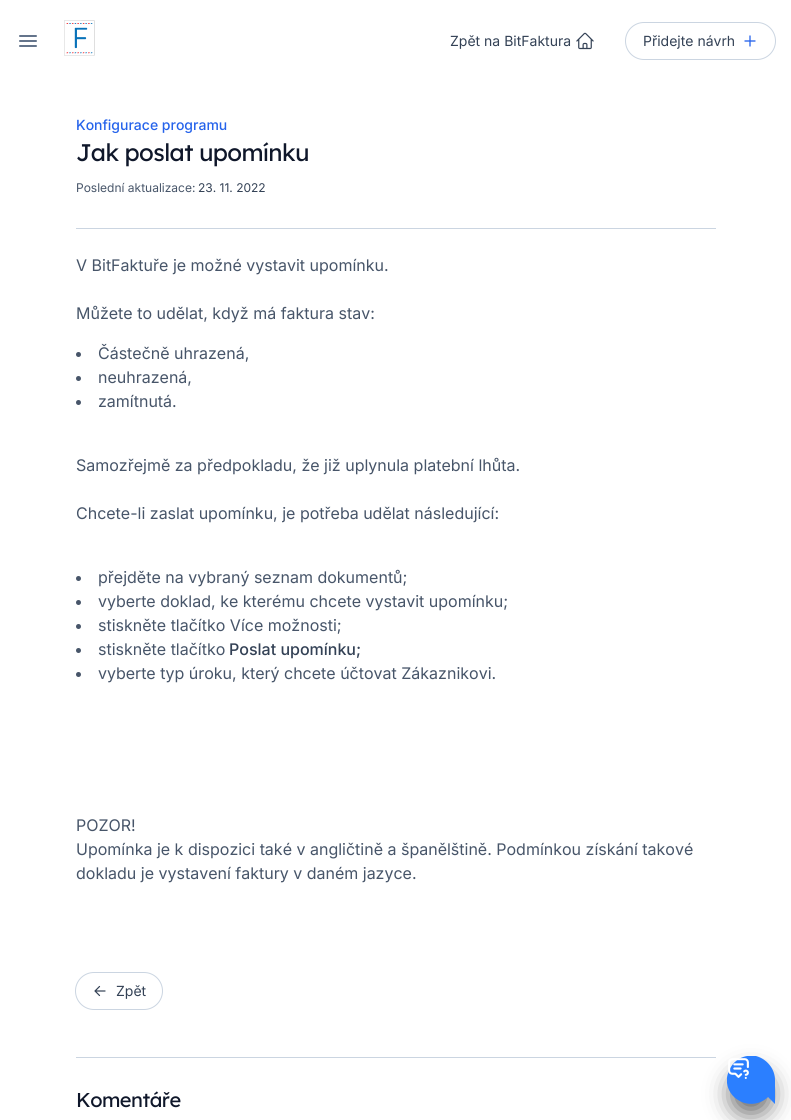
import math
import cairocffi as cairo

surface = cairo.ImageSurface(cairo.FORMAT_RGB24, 791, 1120)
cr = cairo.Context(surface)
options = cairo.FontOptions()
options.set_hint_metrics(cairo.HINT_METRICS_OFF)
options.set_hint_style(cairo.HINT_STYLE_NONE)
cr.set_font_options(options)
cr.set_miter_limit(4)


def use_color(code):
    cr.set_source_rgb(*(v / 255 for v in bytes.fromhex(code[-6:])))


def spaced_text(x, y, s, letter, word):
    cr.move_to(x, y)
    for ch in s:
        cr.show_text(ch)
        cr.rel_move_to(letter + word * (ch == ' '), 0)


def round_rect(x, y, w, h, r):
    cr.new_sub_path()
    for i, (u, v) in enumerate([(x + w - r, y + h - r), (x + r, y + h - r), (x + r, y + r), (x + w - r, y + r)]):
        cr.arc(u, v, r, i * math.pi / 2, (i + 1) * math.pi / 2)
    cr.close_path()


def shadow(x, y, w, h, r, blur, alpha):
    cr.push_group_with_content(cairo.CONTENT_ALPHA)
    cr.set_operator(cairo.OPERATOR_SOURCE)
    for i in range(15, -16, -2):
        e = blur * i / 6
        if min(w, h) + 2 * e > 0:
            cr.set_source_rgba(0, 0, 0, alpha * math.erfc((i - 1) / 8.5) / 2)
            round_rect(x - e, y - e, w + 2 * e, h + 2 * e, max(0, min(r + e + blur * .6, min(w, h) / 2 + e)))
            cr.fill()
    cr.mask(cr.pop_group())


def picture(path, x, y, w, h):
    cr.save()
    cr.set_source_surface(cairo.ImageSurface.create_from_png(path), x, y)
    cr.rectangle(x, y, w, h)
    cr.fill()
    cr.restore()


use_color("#ffffff")
cr.paint()
cr.new_path()
cr.move_to(20, 36)
cr.line_to(36, 36)
cr.move_to(20, 41)
cr.line_to(36, 41)
cr.move_to(20, 46)
cr.line_to(36, 46)
use_color("#64748b")
cr.set_line_cap(cairo.LINE_CAP_ROUND)
cr.stroke()
picture("img1.png", 64, 20, 31, 36)
cr.select_font_face("Inter")
cr.set_font_size(14)
use_color("#334155")
cr.move_to(450, 46)
cr.show_text("Zpět na BitFaktura")
picture("img2.png", 576, 32, 18, 18)
round_rect(625.5, 22.5, 150, 37, 18.5)
use_color("#cbd5e1")
cr.set_line_width(1)
cr.set_line_cap(cairo.LINE_CAP_BUTT)
cr.stroke()
use_color("#334155")
cr.move_to(643, 46)
cr.show_text("Přidejte návrh")
cr.new_path()
cr.move_to(750, 36)
cr.line_to(750, 46)
cr.move_to(755, 41)
cr.line_to(745, 41)
use_color("#2563eb")
cr.set_line_width(1.3)
cr.set_line_cap(cairo.LINE_CAP_ROUND)
cr.set_line_join(cairo.LINE_JOIN_ROUND)
cr.stroke()
cr.select_font_face("Inter Medium")
cr.move_to(76, 130)
cr.show_text("Konfigurace programu")
cr.select_font_face("Lexend")
cr.set_font_size(24)
use_color("#0f172a")
spaced_text(76, 161, "Jak poslat upomínku", -0.6, 0)
cr.select_font_face("Inter")
cr.set_font_size(12)
use_color("#475569")
cr.move_to(76, 192)
cr.show_text("Poslední aktualizace:")
use_color("#334155")
cr.move_to(198, 192)
cr.show_text("23. 11. 2022")
use_color("#cbd5e1")
cr.rectangle(76, 228, 640, 1)
cr.fill()
cr.set_font_size(16)
use_color("#475569")
cr.move_to(76, 271)
cr.show_text("V BitFaktuře je možné vystavit upomínku.")
cr.move_to(76, 319)
cr.show_text("Můžete to udělat, když má faktura stav:")
cr.new_path()
cr.arc(78.5, 354.5, 2.5, 0, 2 * math.pi)
cr.fill()
cr.move_to(98, 359)
cr.show_text("Částečně uhrazená,")
cr.new_path()
cr.arc(78.5, 378.5, 2.5, 0, 2 * math.pi)
cr.fill()
cr.move_to(98, 383)
cr.show_text("neuhrazená,")
cr.new_path()
cr.arc(78.5, 402.5, 2.5, 0, 2 * math.pi)
cr.fill()
cr.move_to(98, 407)
cr.show_text("zamítnutá.")
cr.move_to(76, 471)
cr.show_text("Samozřejmě za předpokladu, že již uplynula platební lhůta.")
cr.move_to(76, 519)
cr.show_text("Chcete-li zaslat upomínku, je potřeba udělat následující:")
cr.new_path()
cr.arc(78.5, 578.5, 2.5, 0, 2 * math.pi)
cr.fill()
cr.move_to(98, 583)
cr.show_text("přejděte na vybraný seznam dokumentů;")
cr.new_path()
cr.arc(78.5, 602.5, 2.5, 0, 2 * math.pi)
cr.fill()
cr.move_to(98, 607)
cr.show_text("vyberte doklad, ke kterému chcete vystavit upomínku;")
cr.new_path()
cr.arc(78.5, 626.5, 2.5, 0, 2 * math.pi)
cr.fill()
cr.move_to(98, 631)
cr.show_text("stiskněte tlačítko Více možnosti;")
cr.new_path()
cr.arc(78.5, 650.5, 2.5, 0, 2 * math.pi)
cr.fill()
cr.move_to(98, 655)
cr.show_text("stiskněte tlačítko")
cr.select_font_face("Inter Medium")
use_color("#334155")
cr.move_to(229, 655)
cr.show_text("Poslat upomínku;")
use_color("#475569")
cr.new_path()
cr.arc(78.5, 674.5, 2.5, 0, 2 * math.pi)
cr.fill()
cr.select_font_face("Inter")
cr.move_to(98, 679)
cr.show_text("vyberte typ úroku, který chcete účtovat Zákaznikovi.")
cr.move_to(76, 831)
cr.show_text("POZOR!")
cr.move_to(76, 855)
cr.show_text("Upomínka je k dispozici také v angličtině a španělštině. Podmínkou získání takové")
cr.move_to(76, 879)
cr.show_text("dokladu je vystavení faktury v daném jazyce.")
round_rect(75.5, 972.5, 87, 37, 18.5)
use_color("#cbd5e1")
cr.set_line_width(1)
cr.set_line_cap(cairo.LINE_CAP_BUTT)
cr.set_line_join(cairo.LINE_JOIN_MITER)
cr.stroke()
picture("img3.png", 94, 985, 12, 12)
cr.set_font_size(14)
use_color("#334155")
cr.move_to(116, 996)
cr.show_text("Zpět")
use_color("#cbd5e1")
cr.rectangle(76, 1057, 640, 1)
cr.fill()
cr.select_font_face("Lexend")
cr.set_font_size(20)
use_color("#0f172a")
spaced_text(76, 1107, "Komentáře", -0.5, 0)
use_color("#000000")
shadow(732, 1075, 38, 38, 19, 12.5, 0.62)
cr.save()
cr.rectangle(727, 1056, 48, 48)
cr.clip()
use_color("#2b7fff")
cr.new_path()
cr.move_to(775, 1080)
cr.line_to(775, 1104)
cr.line_to(768, 1097)
cr.curve_to(760, 1105, 747, 1106, 738, 1100)
cr.curve_to(728, 1094, 724, 1081, 729, 1071)
cr.curve_to(733, 1060, 744, 1054, 756, 1056)
cr.curve_to(767, 1059, 775, 1069, 775, 1080)
cr.close_path()
cr.fill()
cr.restore()
picture("img4.png", 728, 1058, 21, 21)
surface.write_to_png("result.png")
